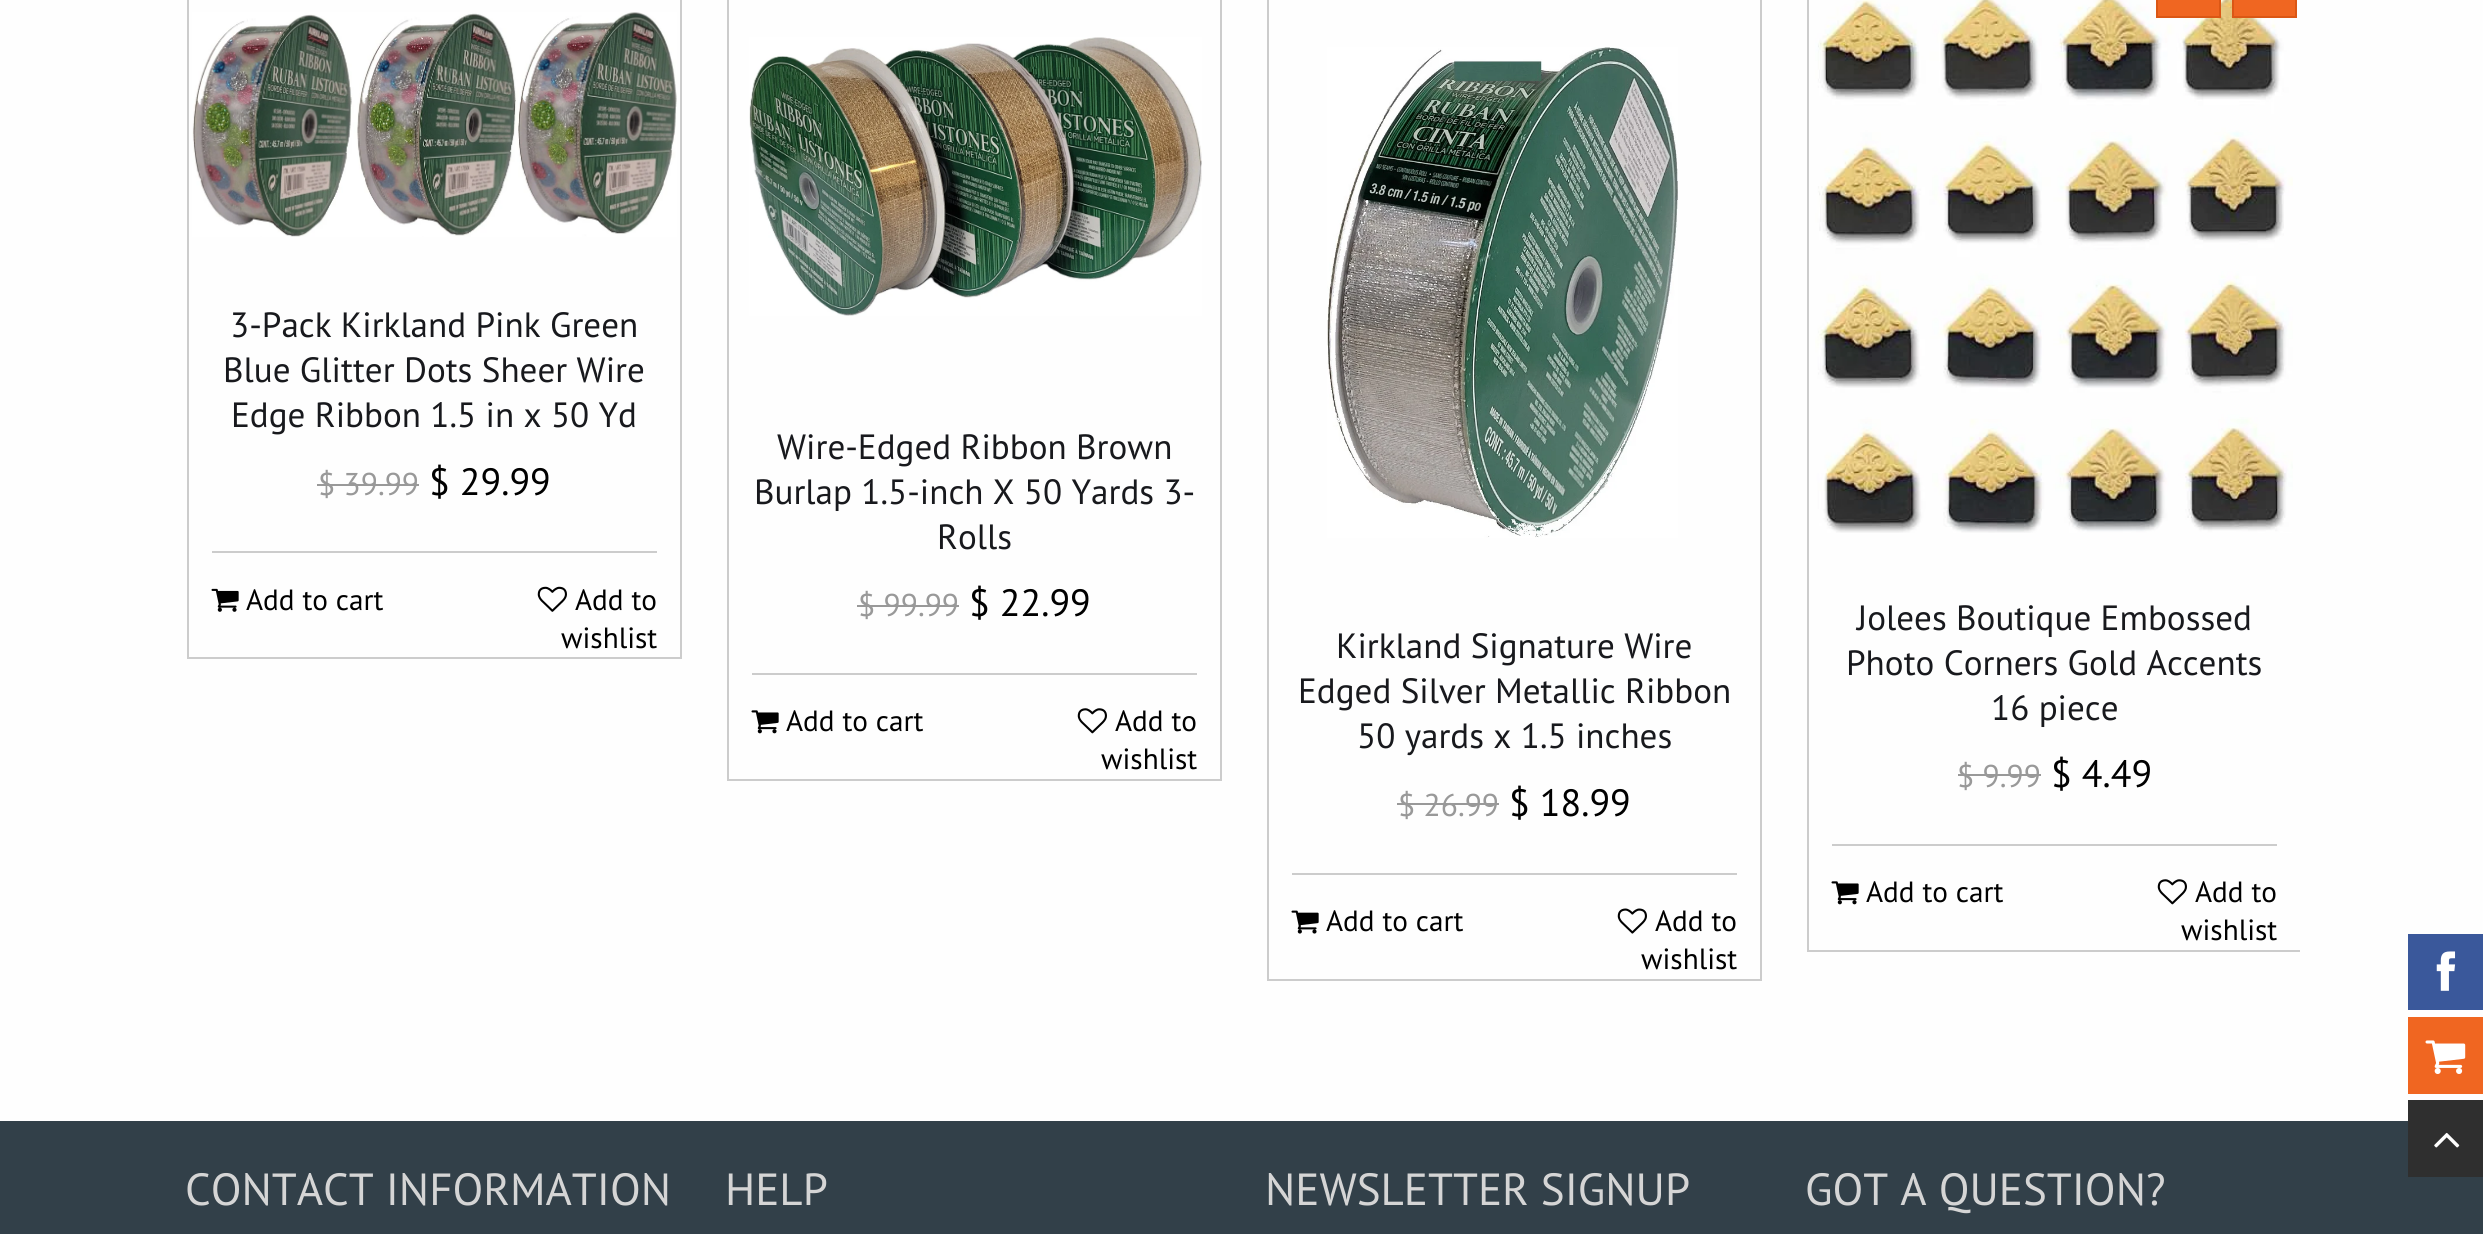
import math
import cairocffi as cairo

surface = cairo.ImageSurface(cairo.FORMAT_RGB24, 2483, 1234)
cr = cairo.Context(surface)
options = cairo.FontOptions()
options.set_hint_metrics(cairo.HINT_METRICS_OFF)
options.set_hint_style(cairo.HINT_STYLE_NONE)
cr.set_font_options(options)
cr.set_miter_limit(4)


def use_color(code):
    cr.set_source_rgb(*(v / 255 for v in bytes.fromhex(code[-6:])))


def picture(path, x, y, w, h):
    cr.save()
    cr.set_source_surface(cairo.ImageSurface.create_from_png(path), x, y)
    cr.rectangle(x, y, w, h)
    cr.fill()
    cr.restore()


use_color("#324049")
cr.paint()
use_color("#fefefe")
cr.rectangle(0, 0, 2483, 1121)
cr.fill()
cr.save()
cr.rectangle(185, 0, 2115, 1064)
cr.clip()
cr.rectangle(1808, -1, 493, 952)
use_color("#cccccc")
cr.stroke()
cr.restore()
picture("img10.png", 1815, 0, 478, 533)
use_color("#f06621")
cr.rectangle(2157, -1, 63, 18)
cr.fill_preserve()
use_color("#db5715")
cr.stroke()
use_color("#f06621")
cr.rectangle(2233, -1, 63, 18)
cr.fill_preserve()
use_color("#db5715")
cr.stroke()
cr.rectangle(188, -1, 493, 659)
use_color("#cccccc")
cr.stroke()
picture("img1.png", 192, 12, 485, 225)
cr.rectangle(212, 551, 445, 2)
cr.fill()
cr.select_font_face("PT Sans")
cr.set_font_size(35.1)
use_color("#18191d")
cr.move_to(230, 337)
cr.show_text("3-Pack Kirkland Pink Green")
cr.move_to(223, 382)
cr.show_text("Blue Glitter Dots Sheer Wire")
cr.move_to(231, 427)
cr.show_text("Edge Ribbon 1.5 in x 50 Yd")
cr.set_font_size(31.5)
use_color("#999999")
cr.move_to(318, 495)
cr.show_text("$ 39.99")
cr.rectangle(317, 484, 102, 2)
cr.fill()
cr.set_font_size(38)
use_color("#000000")
cr.move_to(429, 495)
cr.show_text("$ 29.99")
picture("img2.png", 211, 588, 28, 24)
cr.set_font_size(29.25)
cr.move_to(246, 610)
cr.show_text("Add to cart")
picture("img3.png", 537, 586, 30, 26)
cr.move_to(575, 610)
cr.show_text("Add to")
cr.move_to(561, 648)
cr.show_text("wishlist")
cr.rectangle(728, -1, 493, 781)
use_color("#cccccc")
cr.stroke()
picture("img4.png", 749, 37, 453, 279)
cr.rectangle(752, 673, 445, 2)
cr.fill()
cr.set_font_size(35.1)
use_color("#18191d")
cr.move_to(777, 459)
cr.show_text("Wire-Edged Ribbon Brown")
cr.move_to(754, 504)
cr.show_text("Burlap 1.5-inch X 50 Yards 3-")
cr.move_to(937, 549)
cr.show_text("Rolls")
cr.set_font_size(31.5)
use_color("#999999")
cr.move_to(858, 616)
cr.show_text("$ 99.99")
cr.rectangle(857, 605, 102, 2)
cr.fill()
cr.set_font_size(38)
use_color("#000000")
cr.move_to(969, 616)
cr.show_text("$ 22.99")
picture("img5.png", 751, 710, 28, 24)
cr.set_font_size(29.25)
cr.move_to(786, 731)
cr.show_text("Add to cart")
picture("img6.png", 1077, 708, 30, 26)
cr.move_to(1115, 731)
cr.show_text("Add to")
cr.move_to(1101, 769)
cr.show_text("wishlist")
cr.rectangle(1268, -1, 493, 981)
use_color("#cccccc")
cr.stroke()
picture("img7.png", 1327, 47, 351, 491)
cr.rectangle(1292, 873, 445, 2)
cr.fill()
cr.set_font_size(35.1)
use_color("#18191d")
cr.move_to(1336, 658)
cr.show_text("Kirkland Signature Wire")
cr.move_to(1298, 703)
cr.show_text("Edged Silver Metallic Ribbon")
cr.move_to(1357, 748)
cr.show_text("50 yards x 1.5 inches")
cr.set_font_size(31.5)
use_color("#999999")
cr.move_to(1398, 816)
cr.show_text("$ 26.99")
cr.rectangle(1397, 803, 102, 2)
cr.fill()
cr.set_font_size(38)
use_color("#000000")
cr.move_to(1509, 816)
cr.show_text("$ 18.99")
picture("img8.png", 1291, 910, 28, 24)
cr.set_font_size(29.25)
cr.move_to(1326, 931)
cr.show_text("Add to cart")
picture("img9.png", 1617, 908, 30, 26)
cr.move_to(1655, 931)
cr.show_text("Add to")
cr.move_to(1641, 969)
cr.show_text("wishlist")
use_color("#cccccc")
cr.rectangle(1832, 844, 445, 2)
cr.fill()
cr.set_font_size(35.1)
use_color("#18191d")
cr.move_to(1857, 630)
cr.show_text("Jolees Boutique Embossed")
cr.move_to(1846, 675)
cr.show_text("Photo Corners Gold Accents")
cr.move_to(1991, 720)
cr.show_text("16 piece")
cr.set_font_size(31.5)
use_color("#999999")
cr.move_to(1957, 787)
cr.show_text("$ 9.99")
cr.rectangle(1958, 774, 83, 2)
cr.fill()
cr.set_font_size(38)
use_color("#000000")
cr.move_to(2051, 787)
cr.show_text("$ 4.49")
picture("img5.png", 1831, 881, 28, 24)
cr.set_font_size(29.25)
cr.move_to(1866, 902)
cr.show_text("Add to cart")
picture("img6.png", 2157, 879, 30, 26)
cr.move_to(2195, 902)
cr.show_text("Add to")
cr.move_to(2181, 940)
cr.show_text("wishlist")
use_color("#3a589b")
cr.rectangle(2408, 934, 75, 76)
cr.fill()
picture("img11.png", 2436, 951, 20, 40)
use_color("#f06621")
cr.rectangle(2408, 1017, 75, 77)
cr.fill()
picture("img12.png", 2425, 1040, 41, 34)
use_color("#2f2f2f")
cr.rectangle(2408, 1100, 75, 77)
cr.fill()
picture("img13.png", 2434, 1132, 26, 16)
cr.set_font_size(45)
use_color("#d5d5d5")
cr.move_to(185, 1205)
cr.show_text("CONTACT INFORMATION")
cr.move_to(725, 1205)
cr.show_text("HELP")
cr.move_to(1265, 1205)
cr.show_text("NEWSLETTER SIGNUP")
cr.move_to(1805, 1205)
cr.show_text("GOT A QUESTION?")
surface.write_to_png("result.png")
